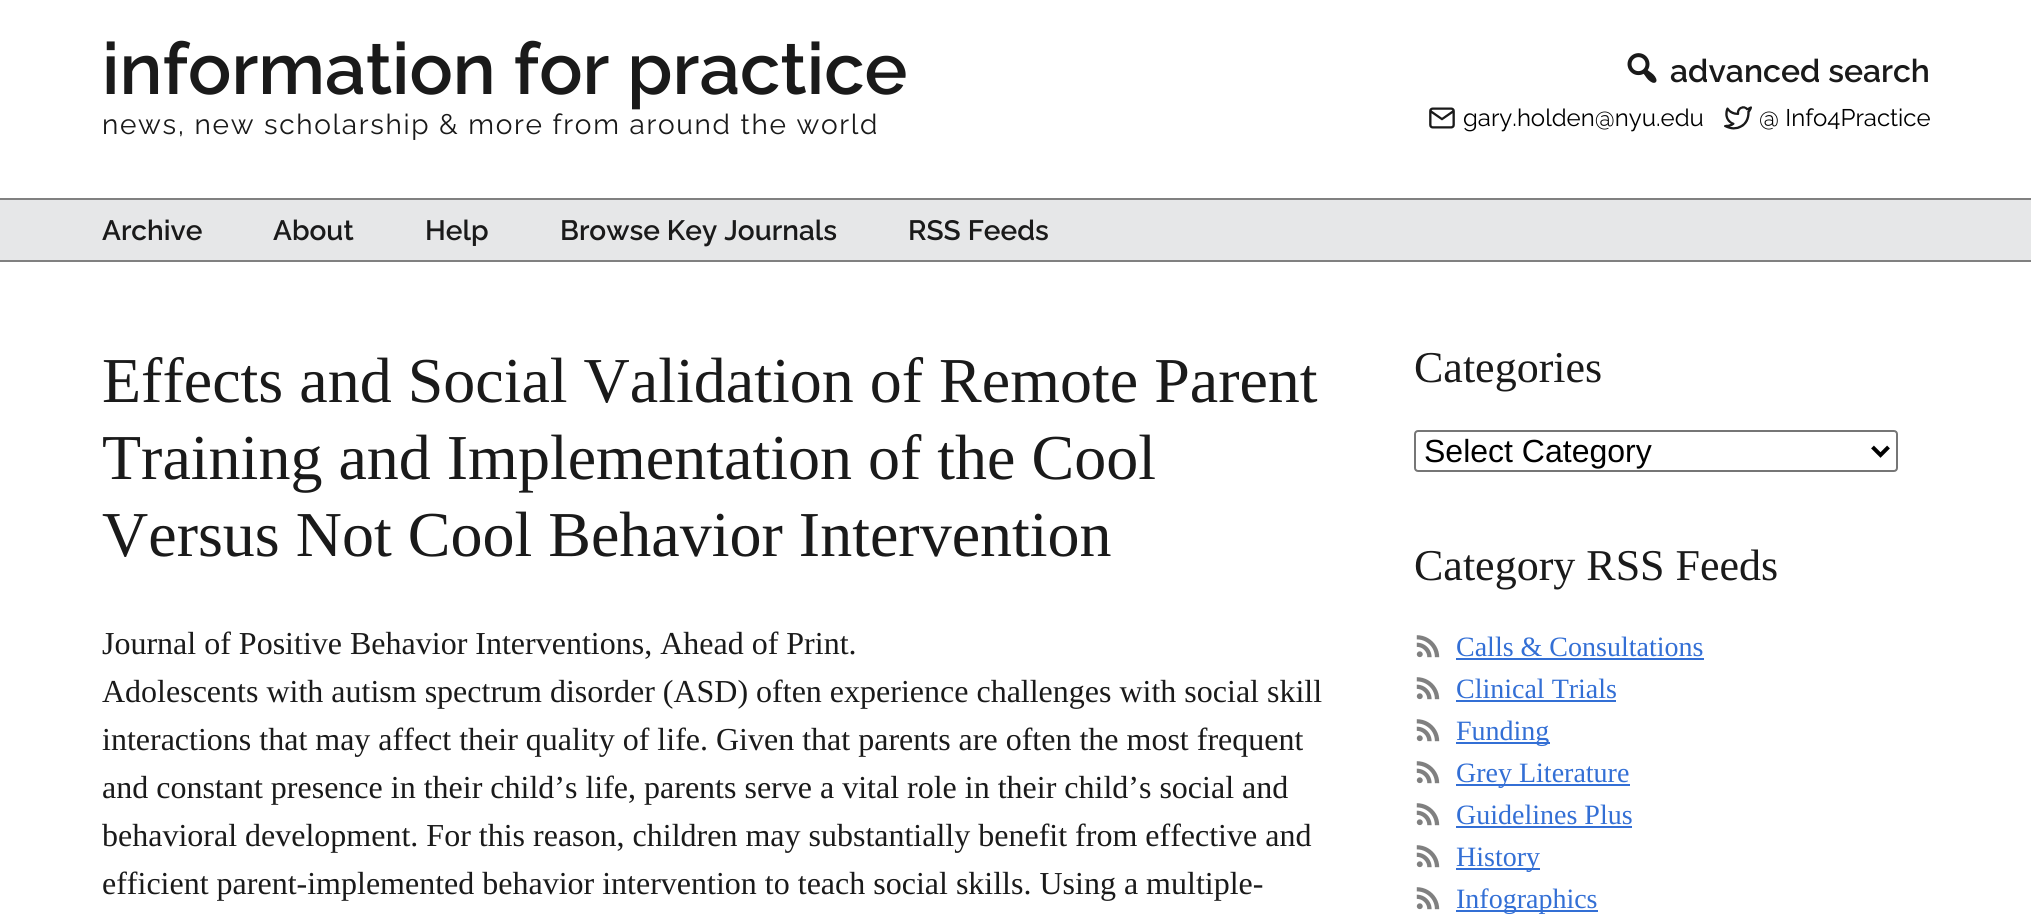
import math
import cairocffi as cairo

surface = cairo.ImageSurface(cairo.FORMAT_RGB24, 2031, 922)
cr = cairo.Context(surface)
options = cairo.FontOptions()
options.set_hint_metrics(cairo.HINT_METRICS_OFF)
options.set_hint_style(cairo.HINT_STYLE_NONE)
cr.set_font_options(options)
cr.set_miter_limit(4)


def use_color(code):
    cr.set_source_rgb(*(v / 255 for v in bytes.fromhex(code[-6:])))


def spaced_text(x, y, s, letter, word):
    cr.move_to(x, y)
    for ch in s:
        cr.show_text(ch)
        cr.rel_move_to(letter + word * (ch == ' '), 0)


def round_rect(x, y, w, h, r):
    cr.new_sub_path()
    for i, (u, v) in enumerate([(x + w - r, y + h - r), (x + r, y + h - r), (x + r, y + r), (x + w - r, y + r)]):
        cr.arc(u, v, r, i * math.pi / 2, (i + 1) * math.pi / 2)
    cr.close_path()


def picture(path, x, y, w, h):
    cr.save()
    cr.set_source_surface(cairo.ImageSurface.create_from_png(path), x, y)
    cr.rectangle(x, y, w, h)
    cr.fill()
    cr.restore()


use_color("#ffffff")
cr.paint()
cr.select_font_face("Raleway SemiBold")
cr.set_font_size(72)
use_color("#1a1a1a")
cr.move_to(102, 94)
cr.show_text("information for practice")
cr.select_font_face("Raleway")
cr.set_font_size(28)
spaced_text(102, 134, "news, new scholarship & more from around the world", 1.68, 0)
picture("img1.png", 1627, 53, 30, 30)
cr.select_font_face("Raleway SemiBold")
cr.set_font_size(32)
cr.move_to(1670, 82)
cr.show_text("advanced search")
picture("img2.png", 1429, 107, 26, 22)
cr.select_font_face("Raleway")
cr.set_font_size(24)
use_color("#000000")
cr.move_to(1463, 126)
cr.show_text("gary.holden@nyu.edu")
picture("img3.png", 1724, 106, 28, 24)
cr.move_to(1759, 126)
cr.show_text("@ Info4Practice")
use_color("#e6e7e8")
cr.rectangle(0, 200, 2031, 60)
cr.fill()
use_color("#808080")
cr.rectangle(0, 198, 2031, 2)
cr.fill()
cr.rectangle(0, 260, 2031, 2)
cr.fill()
cr.select_font_face("Raleway SemiBold")
cr.set_font_size(28)
use_color("#1a1a1a")
cr.move_to(102, 240)
cr.show_text("Archive")
cr.move_to(273, 240)
cr.show_text("About")
cr.move_to(425, 240)
cr.show_text("Help")
cr.move_to(560, 240)
cr.show_text("Browse Key Journals")
cr.move_to(908, 240)
cr.show_text("RSS Feeds")
cr.select_font_face("Liberation Serif")
cr.set_font_size(64)
cr.move_to(102, 402)
cr.show_text("Effects and Social Validation of Remote Parent")
cr.move_to(102, 479)
cr.show_text("Training and Implementation of the Cool")
cr.move_to(102, 556)
cr.show_text("Versus Not Cool Behavior Intervention")
cr.set_font_size(32)
cr.move_to(102, 654)
cr.show_text("Journal of Positive Behavior Interventions, Ahead of Print.")
cr.move_to(102, 702)
cr.show_text("Adolescents with autism spectrum disorder (ASD) often experience challenges with social skill")
cr.move_to(102, 750)
cr.show_text("interactions that may affect their quality of life. Given that parents are often the most frequent")
cr.move_to(102, 798)
cr.show_text("and constant presence in their child’s life, parents serve a vital role in their child’s social and")
cr.move_to(102, 846)
cr.show_text("behavioral development. For this reason, children may substantially benefit from effective and")
cr.move_to(102, 894)
cr.show_text("efficient parent-implemented behavior intervention to teach social skills. Using a multiple-")
cr.set_font_size(44)
cr.move_to(1414, 382)
cr.show_text("Categories")
round_rect(1415, 431, 482, 40, 3)
use_color("#767676")
cr.stroke()
cr.new_path()
cr.move_to(1872.5, 447)
cr.line_to(1880.5, 455)
cr.line_to(1888.5, 447)
use_color("#000000")
cr.set_line_width(4)
cr.stroke()
cr.select_font_face("Liberation Sans")
cr.set_font_size(32)
cr.move_to(1424, 462)
cr.show_text("Select Category")
cr.select_font_face("Liberation Serif")
cr.set_font_size(44)
use_color("#1a1a1a")
cr.move_to(1414, 580)
cr.show_text("Category RSS Feeds")
picture("img4.png", 1416, 635, 24, 23)
cr.set_font_size(28)
use_color("#336fd5")
cr.move_to(1456, 656)
cr.show_text("Calls & Consultations")
cr.rectangle(1456, 658, 248, 2)
cr.fill()
picture("img4.png", 1416, 677, 24, 23)
cr.move_to(1456, 698)
cr.show_text("Clinical Trials")
cr.rectangle(1456, 700, 160, 2)
cr.fill()
picture("img4.png", 1416, 719, 24, 23)
cr.rectangle(1456, 742, 94, 2)
cr.fill()
cr.move_to(1456, 740)
cr.show_text("Funding")
picture("img4.png", 1416, 761, 24, 23)
cr.rectangle(1456, 784, 174, 2)
cr.fill()
cr.move_to(1456, 782)
cr.show_text("Grey Literature")
picture("img4.png", 1416, 803, 24, 23)
cr.move_to(1456, 824)
cr.show_text("Guidelines Plus")
cr.rectangle(1456, 826, 176, 2)
cr.fill()
picture("img4.png", 1416, 845, 24, 23)
cr.rectangle(1456, 868, 84, 2)
cr.fill()
cr.move_to(1456, 866)
cr.show_text("History")
picture("img4.png", 1416, 887, 24, 23)
cr.rectangle(1456, 910, 142, 2)
cr.fill()
cr.move_to(1456, 908)
cr.show_text("Infographics")
surface.write_to_png("result.png")
